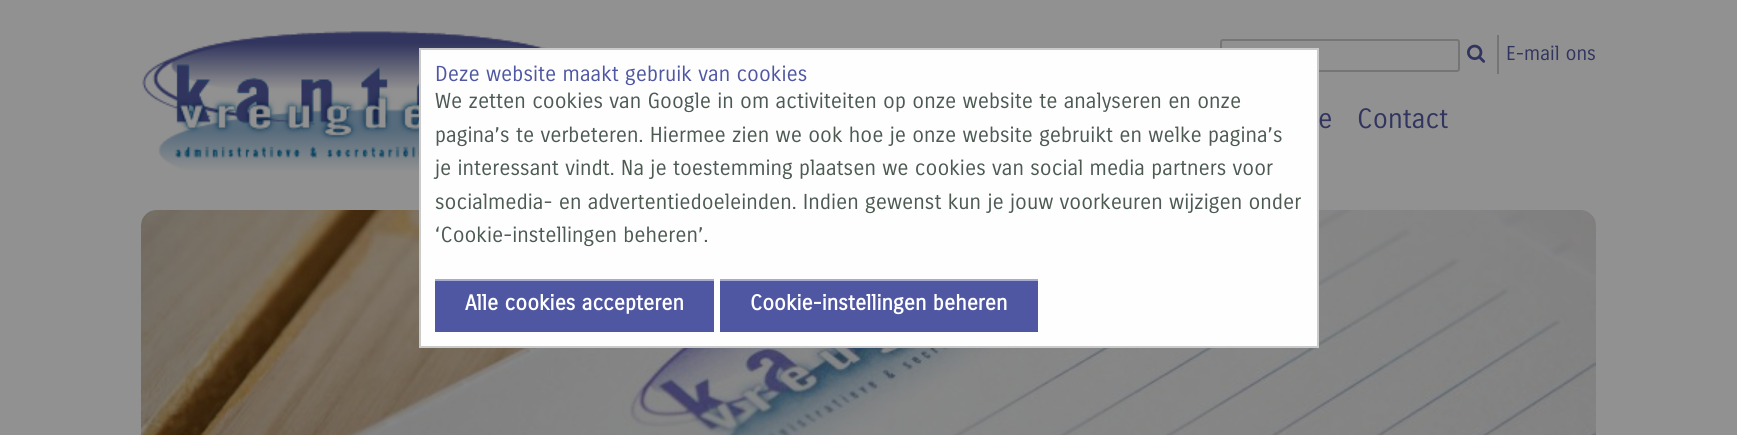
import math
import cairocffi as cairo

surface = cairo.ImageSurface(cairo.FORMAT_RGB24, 1737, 435)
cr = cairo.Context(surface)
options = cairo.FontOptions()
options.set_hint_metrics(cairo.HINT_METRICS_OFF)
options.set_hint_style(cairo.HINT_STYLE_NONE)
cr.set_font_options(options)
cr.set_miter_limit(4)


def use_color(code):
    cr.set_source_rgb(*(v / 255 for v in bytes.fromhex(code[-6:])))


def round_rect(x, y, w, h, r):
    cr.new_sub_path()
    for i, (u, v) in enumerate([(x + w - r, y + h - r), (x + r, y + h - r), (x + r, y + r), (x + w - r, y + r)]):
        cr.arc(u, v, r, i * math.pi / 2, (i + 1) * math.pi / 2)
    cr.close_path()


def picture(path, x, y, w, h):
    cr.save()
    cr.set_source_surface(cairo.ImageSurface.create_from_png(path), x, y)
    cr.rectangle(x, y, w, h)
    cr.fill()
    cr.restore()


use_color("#919191")
cr.paint()
picture("img1.png", 142, 31, 457, 140)
round_rect(1221, 40, 238, 31, 2)
use_color("#757575")
cr.stroke()
picture("img3.png", 141, 210, 1455, 225)
use_color("#fefefe")
cr.rectangle(420, 49, 898, 298)
cr.fill_preserve()
use_color("#cacaca")
cr.stroke()
cr.select_font_face("Carrois Gothic")
cr.set_font_size(21)
use_color("#5057a2")
cr.move_to(435, 81)
cr.show_text("Deze website maakt gebruik van cookies")
use_color("#4c5a52")
cr.move_to(435, 108)
cr.show_text("We zetten cookies van Google in om activiteiten op onze website te analyseren en onze")
cr.move_to(435, 142)
cr.show_text("pagina’s te verbeteren. Hiermee zien we ook hoe je onze website gebruikt en welke pagina’s")
cr.move_to(435, 175)
cr.show_text("je interessant vindt. Na je toestemming plaatsen we cookies van social media partners voor")
cr.move_to(435, 209)
cr.show_text("socialmedia- en advertentiedoeleinden. Indien gewenst kun je jouw voorkeuren wijzigen onder")
cr.move_to(435, 242)
cr.show_text("‘Cookie-instellingen beheren’.")
use_color("#5057a2")
cr.rectangle(435, 281, 279, 51)
cr.fill()
use_color("#a8abd1")
cr.rectangle(435, 279, 279, 2)
cr.fill()
cr.select_font_face("Carrois Gothic", cairo.FONT_SLANT_NORMAL, cairo.FONT_WEIGHT_BOLD)
use_color("#ffffff")
cr.move_to(465, 310)
cr.show_text("Alle cookies accepteren")
use_color("#5057a2")
cr.rectangle(720, 281, 318, 51)
cr.fill()
use_color("#a8abd1")
cr.rectangle(720, 279, 318, 2)
cr.fill()
use_color("#ffffff")
cr.move_to(750, 310)
cr.show_text("Cookie-instellingen beheren")
use_color("#757575")
cr.rectangle(1497, 35, 2, 39)
cr.fill()
picture("img2.png", 1467, 44, 19, 19)
cr.select_font_face("Carrois Gothic")
cr.set_font_size(19.5)
use_color("#31345e")
cr.move_to(1506, 60)
cr.show_text("E-mail ons")
cr.set_font_size(27)
cr.move_to(1318, 128)
cr.show_text("e")
cr.move_to(1357, 128)
cr.show_text("Contact")
surface.write_to_png("result.png")
